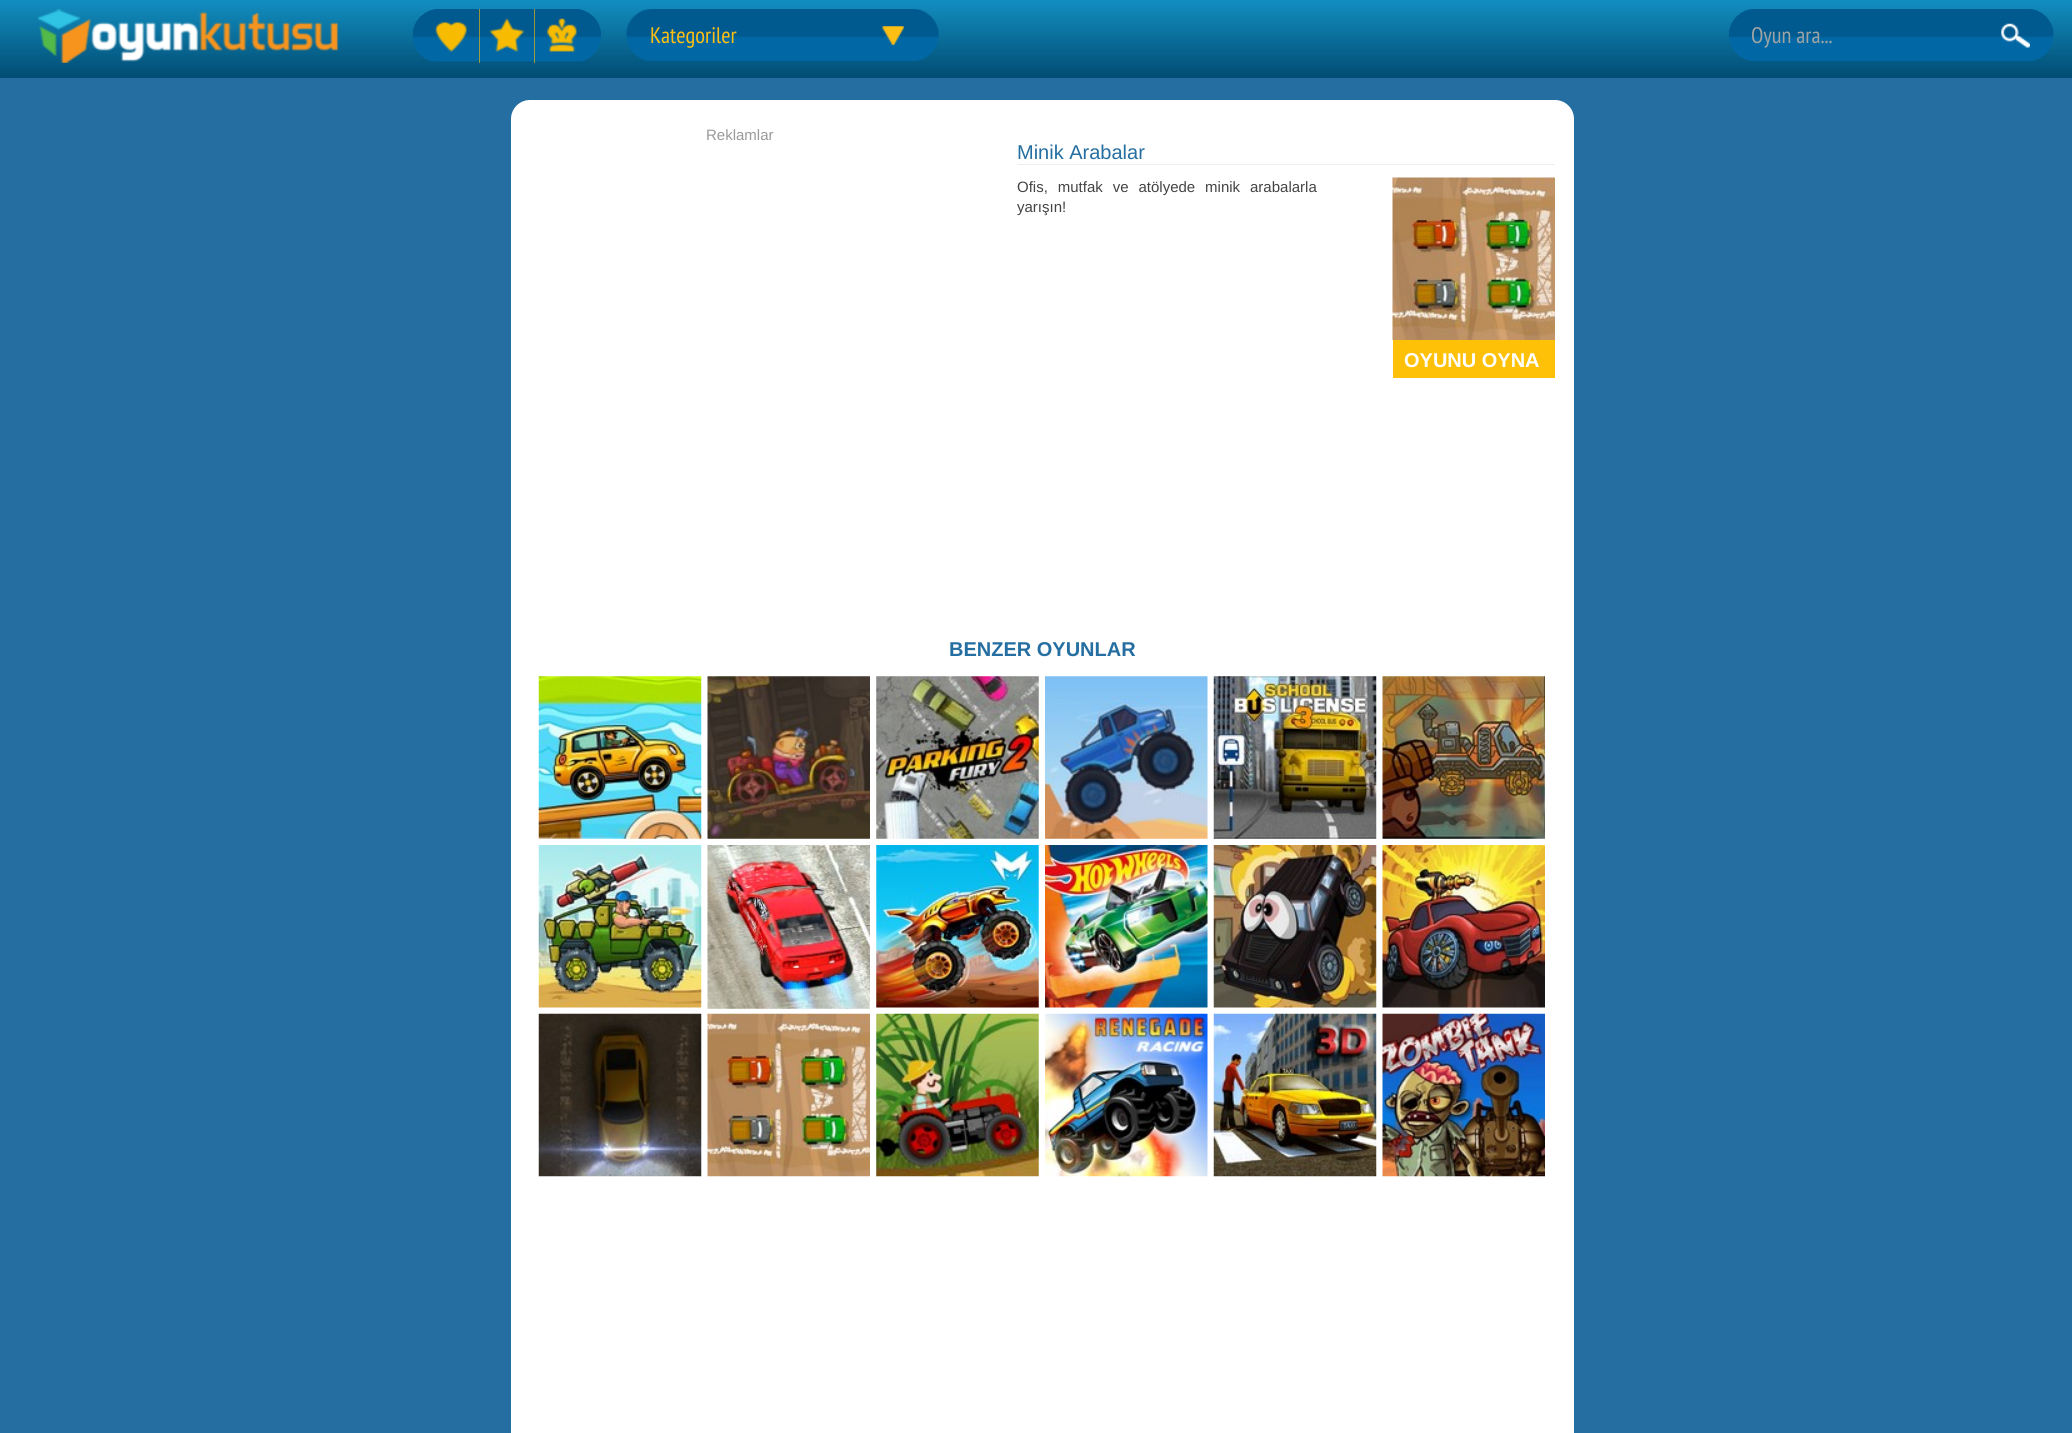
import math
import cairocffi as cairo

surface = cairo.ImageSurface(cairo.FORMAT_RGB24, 2072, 1433)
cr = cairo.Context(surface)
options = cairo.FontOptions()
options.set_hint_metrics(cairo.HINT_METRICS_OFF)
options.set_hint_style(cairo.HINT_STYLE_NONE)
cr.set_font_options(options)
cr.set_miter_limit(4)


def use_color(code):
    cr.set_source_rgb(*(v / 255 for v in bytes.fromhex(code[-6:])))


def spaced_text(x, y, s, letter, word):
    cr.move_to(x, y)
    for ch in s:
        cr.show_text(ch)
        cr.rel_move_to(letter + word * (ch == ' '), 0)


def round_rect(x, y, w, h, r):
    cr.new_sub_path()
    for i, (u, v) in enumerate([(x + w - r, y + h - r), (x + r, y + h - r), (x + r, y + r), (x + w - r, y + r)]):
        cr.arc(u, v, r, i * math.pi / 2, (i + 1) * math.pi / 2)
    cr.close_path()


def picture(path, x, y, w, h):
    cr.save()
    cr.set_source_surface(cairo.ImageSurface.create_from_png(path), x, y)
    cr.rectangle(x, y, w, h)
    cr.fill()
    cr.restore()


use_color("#256ea1")
cr.paint()
gradient = cairo.LinearGradient(1036, 0, 1036, 78)
gradient.add_color_stop_rgba(0, 0.071, 0.557, 0.753, 1)
gradient.add_color_stop_rgba(1, 0.004, 0.298, 0.451, 1)
cr.set_source(gradient)
cr.rectangle(0, 0, 2072, 78)
cr.fill()
picture("img1.png", 38, 9, 300, 54)
picture("img2.png", 413, 9, 188, 53)
cr.set_source_rgba(1, 0.741, 0.012, 0.6)
cr.rectangle(479, 9, 1, 54)
cr.fill()
picture("img3.png", 435, 21, 32, 31)
cr.rectangle(534, 9, 1, 54)
cr.fill()
picture("img4.png", 489, 18, 36, 34)
picture("img5.png", 546, 18, 31, 34)
picture("img6.png", 626, 9, 313, 53)
picture("img7.png", 882, 26, 22, 19)
cr.select_font_face("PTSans")
cr.set_font_size(22.5)
use_color("#febf14")
cr.move_to(650, 43)
cr.show_text("Kategoriler")
picture("img8.png", 1729, 9, 325, 52)
use_color("#9fa4a4")
cr.move_to(1751, 43)
cr.show_text("Oyun ara...")
picture("img9.png", 2001, 23, 29, 25)
use_color("#ffffff")
round_rect(511, 100, 1063, 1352, 19)
cr.fill()
cr.select_font_face("Liberation Sans")
cr.set_font_size(15)
use_color("#999999")
cr.move_to(706, 140)
cr.show_text("Reklamlar")
use_color("#eeeeee")
cr.rectangle(1018, 164, 537, 1)
cr.fill()
cr.set_font_size(20)
use_color("#256ea1")
cr.move_to(1017, 159)
cr.show_text("Minik Arabalar")
cr.set_font_size(15)
use_color("#444444")
spaced_text(1017, 192, "Ofis, mutfak ve atölyede minik arabalarla", 0, 5.75)
cr.move_to(1017, 212)
cr.show_text("yarışın!")
picture("img10.png", 1392, 177, 163, 163)
use_color("#ffc107")
cr.rectangle(1393, 340, 162, 38)
cr.fill()
cr.select_font_face("Liberation Sans", cairo.FONT_SLANT_NORMAL, cairo.FONT_WEIGHT_BOLD)
cr.set_font_size(20)
use_color("#ffffff")
cr.move_to(1404, 367)
cr.show_text("OYUNU OYNA")
use_color("#256ea1")
cr.move_to(949, 656)
cr.show_text("BENZER OYUNLAR")
picture("img11.png", 538, 676, 164, 163)
picture("img12.png", 707, 676, 163, 163)
picture("img13.png", 876, 676, 163, 163)
picture("img14.png", 1045, 676, 163, 163)
picture("img15.png", 1213, 676, 164, 163)
picture("img16.png", 1382, 676, 163, 163)
picture("img17.png", 538, 845, 164, 163)
picture("img18.png", 707, 845, 163, 164)
picture("img19.png", 876, 845, 163, 163)
picture("img20.png", 1045, 845, 163, 163)
picture("img21.png", 1213, 845, 164, 163)
picture("img22.png", 1382, 845, 163, 163)
picture("img23.png", 538, 1013, 164, 164)
picture("img24.png", 707, 1013, 163, 164)
picture("img25.png", 876, 1013, 163, 164)
picture("img26.png", 1045, 1013, 163, 164)
picture("img27.png", 1213, 1013, 164, 164)
picture("img28.png", 1382, 1013, 163, 164)
surface.write_to_png("result.png")
